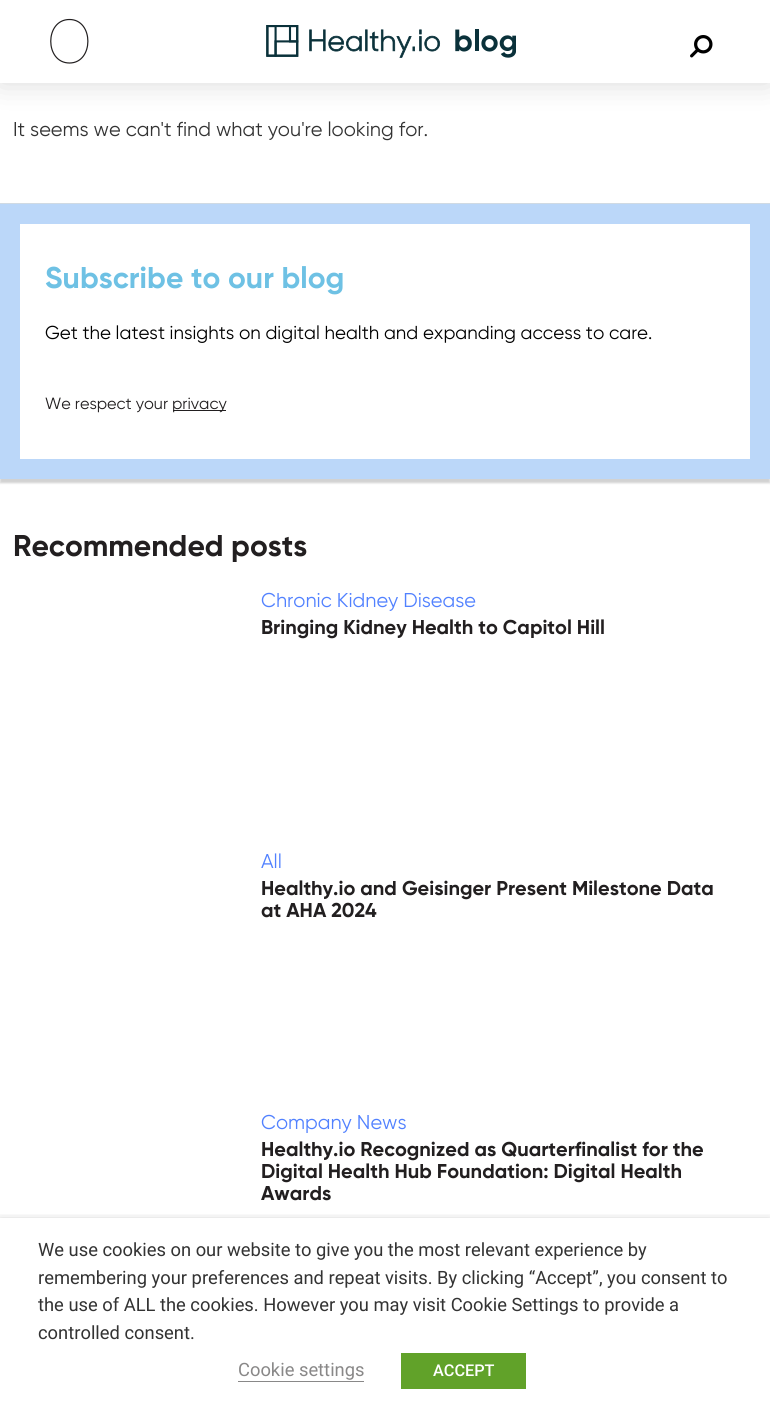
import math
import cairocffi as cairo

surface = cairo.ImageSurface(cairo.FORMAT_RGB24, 770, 1413)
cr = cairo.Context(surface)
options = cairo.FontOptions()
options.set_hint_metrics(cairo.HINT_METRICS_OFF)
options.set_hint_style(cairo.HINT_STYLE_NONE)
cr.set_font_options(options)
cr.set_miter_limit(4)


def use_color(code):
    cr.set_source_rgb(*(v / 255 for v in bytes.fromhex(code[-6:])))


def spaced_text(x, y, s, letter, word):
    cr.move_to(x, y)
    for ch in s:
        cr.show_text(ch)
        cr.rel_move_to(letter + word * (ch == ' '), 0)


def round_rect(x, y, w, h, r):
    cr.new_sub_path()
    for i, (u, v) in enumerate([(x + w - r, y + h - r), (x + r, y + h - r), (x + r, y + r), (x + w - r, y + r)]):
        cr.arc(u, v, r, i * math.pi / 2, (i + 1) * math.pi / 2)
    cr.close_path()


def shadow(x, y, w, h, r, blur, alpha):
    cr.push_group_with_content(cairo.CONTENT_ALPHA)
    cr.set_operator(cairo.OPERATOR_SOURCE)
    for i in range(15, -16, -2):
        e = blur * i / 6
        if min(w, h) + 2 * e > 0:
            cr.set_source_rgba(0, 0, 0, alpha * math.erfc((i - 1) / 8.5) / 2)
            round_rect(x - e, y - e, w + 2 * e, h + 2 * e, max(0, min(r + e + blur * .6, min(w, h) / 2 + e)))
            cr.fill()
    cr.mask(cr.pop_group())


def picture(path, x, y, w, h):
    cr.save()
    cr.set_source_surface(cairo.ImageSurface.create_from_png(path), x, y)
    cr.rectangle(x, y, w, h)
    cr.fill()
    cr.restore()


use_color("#ffffff")
cr.paint()
use_color("#000000")
shadow(0, 0, 770, 83, 0, 15, 0.15)
use_color("#ffffff")
cr.rectangle(0, 0, 770, 83)
cr.fill()
cr.new_path()
cr.move_to(69.5, 19.5)
cr.curve_to(94, 19.5, 94, 63, 69.5, 63)
cr.curve_to(44.5, 63, 44.5, 19.5, 69.5, 19.5)
cr.close_path()
use_color("#221f20")
cr.set_line_width(1.2)
cr.stroke()
picture("img1.png", 266, 25, 250, 33)
picture("img2.png", 690, 35, 23, 23)
cr.select_font_face("Gilroy")
cr.set_font_size(20)
use_color("#333333")
cr.move_to(13, 136)
cr.show_text("It seems we can't find what you're looking for.")
use_color("#000000")
shadow(0, 206, 770, 277, 0, 1, 0.18)
use_color("#bbd7f9")
cr.rectangle(0, 204, 770, 275)
cr.fill()
use_color("#d0dae3")
cr.rectangle(0, 203, 770, 1)
cr.fill()
use_color("#ffffff")
cr.rectangle(20, 224, 730, 235)
cr.fill()
cr.select_font_face("Gilroy", cairo.FONT_SLANT_NORMAL, cairo.FONT_WEIGHT_BOLD)
cr.set_font_size(30)
use_color("#6ec1e4")
spaced_text(45, 288, "Subscribe to our blog", 0.05, 0)
cr.select_font_face("Gilroy")
cr.set_font_size(18.75)
use_color("#000000")
cr.move_to(45, 339)
cr.show_text("Get the latest insights on digital health and expanding access to care.")
cr.set_font_size(16.25)
use_color("#221f20")
cr.move_to(45, 409)
cr.show_text("We respect your")
cr.rectangle(173, 410, 53, 1)
cr.fill()
cr.move_to(172, 409)
cr.show_text("privacy")
cr.select_font_face("Gilroy", cairo.FONT_SLANT_NORMAL, cairo.FONT_WEIGHT_BOLD)
cr.set_font_size(30)
cr.move_to(13, 556)
cr.show_text("Recommended posts")
cr.select_font_face("Gilroy")
cr.set_font_size(20)
use_color("#5181ff")
cr.move_to(261, 607)
cr.show_text("Chronic Kidney Disease")
cr.select_font_face("Gilroy", cairo.FONT_SLANT_NORMAL, cairo.FONT_WEIGHT_BOLD)
use_color("#221f20")
cr.move_to(261, 634)
cr.show_text("Bringing Kidney Health to Capitol Hill")
cr.select_font_face("Gilroy")
use_color("#5181ff")
cr.move_to(261, 868)
cr.show_text("All")
cr.select_font_face("Gilroy", cairo.FONT_SLANT_NORMAL, cairo.FONT_WEIGHT_BOLD)
use_color("#221f20")
cr.move_to(261, 895)
cr.show_text("Healthy.io and Geisinger Present Milestone Data")
cr.move_to(261, 917)
cr.show_text("at AHA 2024")
cr.select_font_face("Gilroy")
use_color("#5181ff")
cr.move_to(261, 1129)
cr.show_text("Company News")
cr.select_font_face("Gilroy", cairo.FONT_SLANT_NORMAL, cairo.FONT_WEIGHT_BOLD)
use_color("#221f20")
cr.move_to(261, 1156)
cr.show_text("Healthy.io Recognized as Quarterfinalist for the")
cr.move_to(261, 1178)
cr.show_text("Digital Health Hub Foundation: Digital Health")
cr.move_to(261, 1200)
cr.show_text("Awards")
cr.save()
cr.rectangle(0, 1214, 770, 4)
cr.clip()
use_color("#000000")
shadow(0, 1224, 770, 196, 0, 6, 0.5)
cr.restore()
cr.select_font_face("Roboto")
cr.set_font_size(18.35)
use_color("#333333")
cr.move_to(38, 1256)
cr.show_text("We use cookies on our website to give you the most relevant experience by")
cr.move_to(38, 1284)
cr.show_text("remembering your preferences and repeat visits. By clicking “Accept”, you consent to")
cr.move_to(38, 1311)
cr.show_text("the use of ALL the cookies. However you may visit Cookie Settings to provide a")
cr.move_to(38, 1339)
cr.show_text("controlled consent.")
use_color("#898888")
cr.move_to(238, 1376)
cr.show_text("Cookie settings")
cr.rectangle(238, 1381, 126, 1)
cr.fill()
use_color("#61a229")
cr.rectangle(401, 1353, 125, 36)
cr.fill()
cr.select_font_face("Roboto Medium")
cr.set_font_size(16.25)
use_color("#ffffff")
cr.move_to(433, 1376)
cr.show_text("ACCEPT")
surface.write_to_png("result.png")
